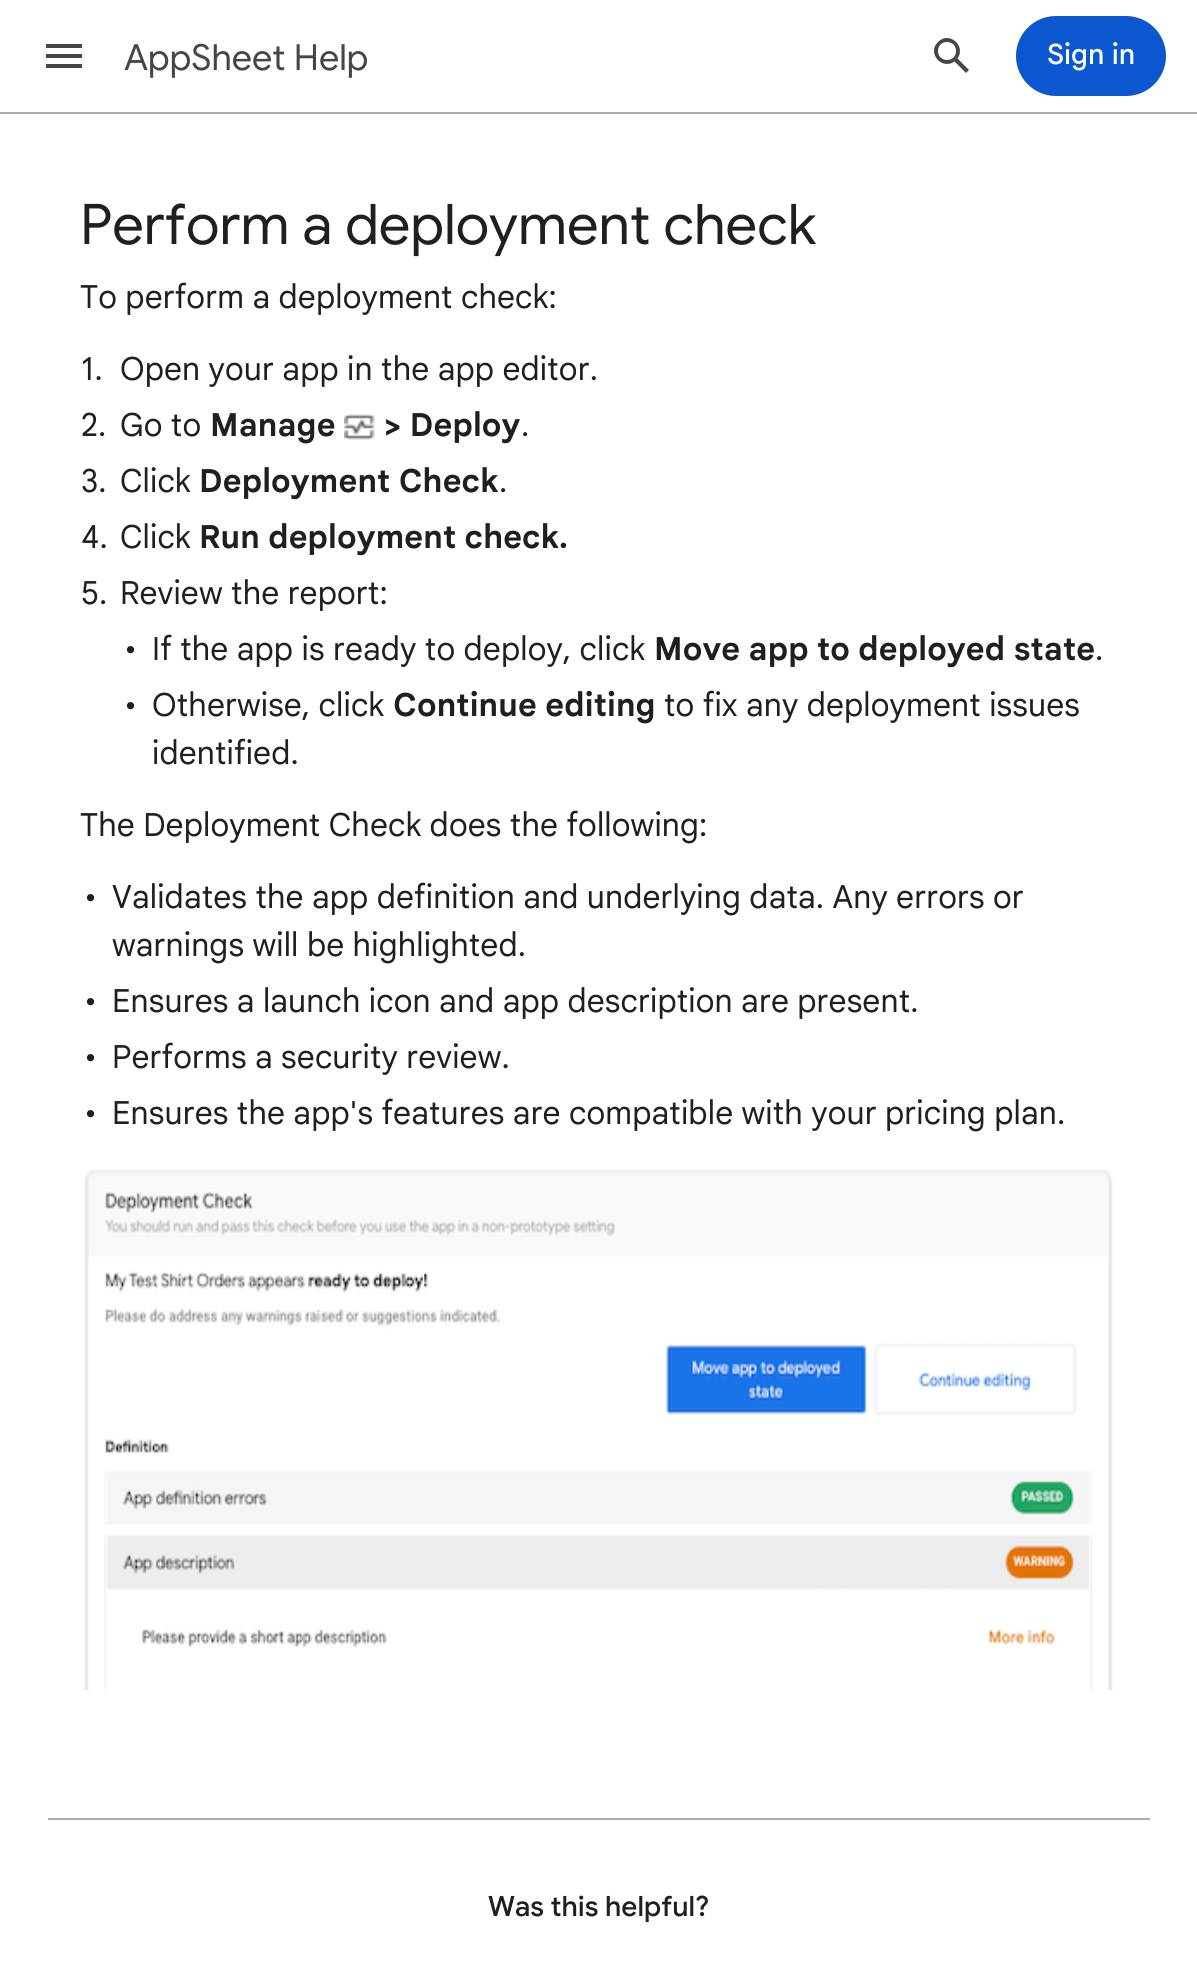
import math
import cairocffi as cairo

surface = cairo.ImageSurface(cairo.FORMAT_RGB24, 1197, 1967)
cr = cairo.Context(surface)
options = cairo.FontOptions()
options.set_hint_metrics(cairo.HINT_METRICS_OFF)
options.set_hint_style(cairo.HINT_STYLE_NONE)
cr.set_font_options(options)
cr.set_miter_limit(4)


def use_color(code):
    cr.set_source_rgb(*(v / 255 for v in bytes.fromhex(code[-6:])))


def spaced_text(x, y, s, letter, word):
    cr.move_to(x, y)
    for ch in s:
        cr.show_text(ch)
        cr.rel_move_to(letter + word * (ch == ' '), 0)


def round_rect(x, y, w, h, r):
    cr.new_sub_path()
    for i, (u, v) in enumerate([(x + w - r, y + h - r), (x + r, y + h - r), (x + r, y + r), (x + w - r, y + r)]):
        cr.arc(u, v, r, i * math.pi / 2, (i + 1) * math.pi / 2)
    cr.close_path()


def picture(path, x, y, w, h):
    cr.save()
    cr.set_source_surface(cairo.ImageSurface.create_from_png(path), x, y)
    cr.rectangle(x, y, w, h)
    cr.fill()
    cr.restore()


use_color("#ffffff")
cr.paint()
use_color("#444746")
cr.new_path()
cr.move_to(46, 68)
cr.line_to(82, 68)
cr.line_to(82, 64)
cr.line_to(46, 64)
cr.close_path()
cr.move_to(46, 58)
cr.line_to(82, 58)
cr.line_to(82, 54)
cr.line_to(46, 54)
cr.close_path()
cr.move_to(46, 44)
cr.line_to(46, 48)
cr.line_to(82, 48)
cr.line_to(82, 44)
cr.close_path()
cr.fill()
cr.select_font_face("Google Sans")
cr.set_font_size(36)
cr.move_to(124, 70)
cr.show_text("AppSheet Help")
cr.new_path()
cr.move_to(969, 70)
cr.line_to(957.5, 58.5)
cr.curve_to(966.5, 46, 949, 30.5, 938, 42)
cr.curve_to(926.5, 53, 942, 70.5, 954.5, 61.5)
cr.line_to(966, 73)
cr.close_path()
cr.move_to(938, 51)
cr.curve_to(938, 39, 956, 39, 956, 51)
cr.curve_to(956, 63, 938, 63, 938, 51)
cr.close_path()
cr.fill()
use_color("#0b57d0")
round_rect(1016, 16, 150, 80, 40)
cr.fill()
cr.select_font_face("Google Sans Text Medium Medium")
cr.set_font_size(28)
use_color("#ffffff")
cr.move_to(1047, 64)
cr.show_text("Sign in")
use_color("#a9acaa")
cr.rectangle(0, 112, 1197, 2)
cr.fill()
cr.select_font_face("Google Sans")
cr.set_font_size(56)
use_color("#1f1f1f")
cr.move_to(80, 244)
cr.show_text("Perform a deployment check")
cr.select_font_face("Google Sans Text")
cr.set_font_size(32)
spaced_text(80, 308, "To perform a deployment check:", 0.15, 0)
spaced_text(81, 380, "1.", 0.15, 0)
spaced_text(120, 380, "Open your app in the app editor.", 0.15, 0)
spaced_text(81, 436, "2.", 0.15, 0)
spaced_text(120, 436, "Go to", 0.15, 0)
cr.select_font_face("Google Sans Text", cairo.FONT_SLANT_NORMAL, cairo.FONT_WEIGHT_BOLD)
spaced_text(210, 436, "Manage", 0.15, 0)
picture("img1.png", 344, 414, 31, 26)
spaced_text(384, 436, "> Deploy", 0.15, 0)
cr.select_font_face("Google Sans Text")
spaced_text(521, 436, ".", 0.15, 0)
spaced_text(81, 492, "3.", 0.15, 0)
spaced_text(120, 492, "Click", 0.15, 0)
cr.select_font_face("Google Sans Text", cairo.FONT_SLANT_NORMAL, cairo.FONT_WEIGHT_BOLD)
spaced_text(199, 492, "Deployment Check", 0.15, 0)
cr.select_font_face("Google Sans Text")
spaced_text(499, 492, ".", 0.15, 0)
spaced_text(81, 548, "4.", 0.15, 0)
spaced_text(120, 548, "Click", 0.15, 0)
cr.select_font_face("Google Sans Text", cairo.FONT_SLANT_NORMAL, cairo.FONT_WEIGHT_BOLD)
spaced_text(199, 548, "Run deployment check.", 0.15, 0)
cr.select_font_face("Google Sans Text")
spaced_text(81, 604, "5.", 0.15, 0)
spaced_text(120, 604, "Review the report:", 0.15, 0)
spaced_text(124, 660, "•", 0.15, 0)
spaced_text(152, 660, "If the app is ready to deploy, click", 0.15, 0)
cr.select_font_face("Google Sans Text", cairo.FONT_SLANT_NORMAL, cairo.FONT_WEIGHT_BOLD)
spaced_text(654, 660, "Move app to deployed state", 0.15, 0)
cr.select_font_face("Google Sans Text")
spaced_text(1095, 660, ".", 0.15, 0)
spaced_text(124, 716, "•", 0.15, 0)
spaced_text(152, 716, "Otherwise, click", 0.15, 0)
cr.select_font_face("Google Sans Text", cairo.FONT_SLANT_NORMAL, cairo.FONT_WEIGHT_BOLD)
spaced_text(393, 716, "Continue editing", 0.15, 0)
cr.select_font_face("Google Sans Text")
spaced_text(664, 716, "to fix any deployment issues", 0.15, 0)
spaced_text(152, 764, "identified.", 0.15, 0)
spaced_text(80, 836, "The Deployment Check does the following:", 0.15, 0)
spaced_text(84, 908, "•", 0.15, 0)
spaced_text(112, 908, "Validates the app definition and underlying data. Any errors or", 0.15, 0)
spaced_text(112, 956, "warnings will be highlighted.", 0.15, 0)
spaced_text(84, 1012, "•", 0.15, 0)
spaced_text(112, 1012, "Ensures a launch icon and app description are present.", 0.15, 0)
spaced_text(84, 1068, "•", 0.15, 0)
spaced_text(112, 1068, "Performs a security review.", 0.15, 0)
spaced_text(84, 1124, "•", 0.15, 0)
spaced_text(112, 1124, "Ensures the app's features are compatible with your pricing plan.", 0.15, 0)
picture("img2.png", 84, 1169, 1029, 521)
use_color("#a9acaa")
cr.rectangle(48, 1818, 1102, 2)
cr.fill()
cr.select_font_face("Google Sans Medium")
cr.set_font_size(28)
use_color("#1f1f1f")
cr.move_to(488, 1916)
cr.show_text("Was this helpful?")
surface.write_to_png("result.png")
